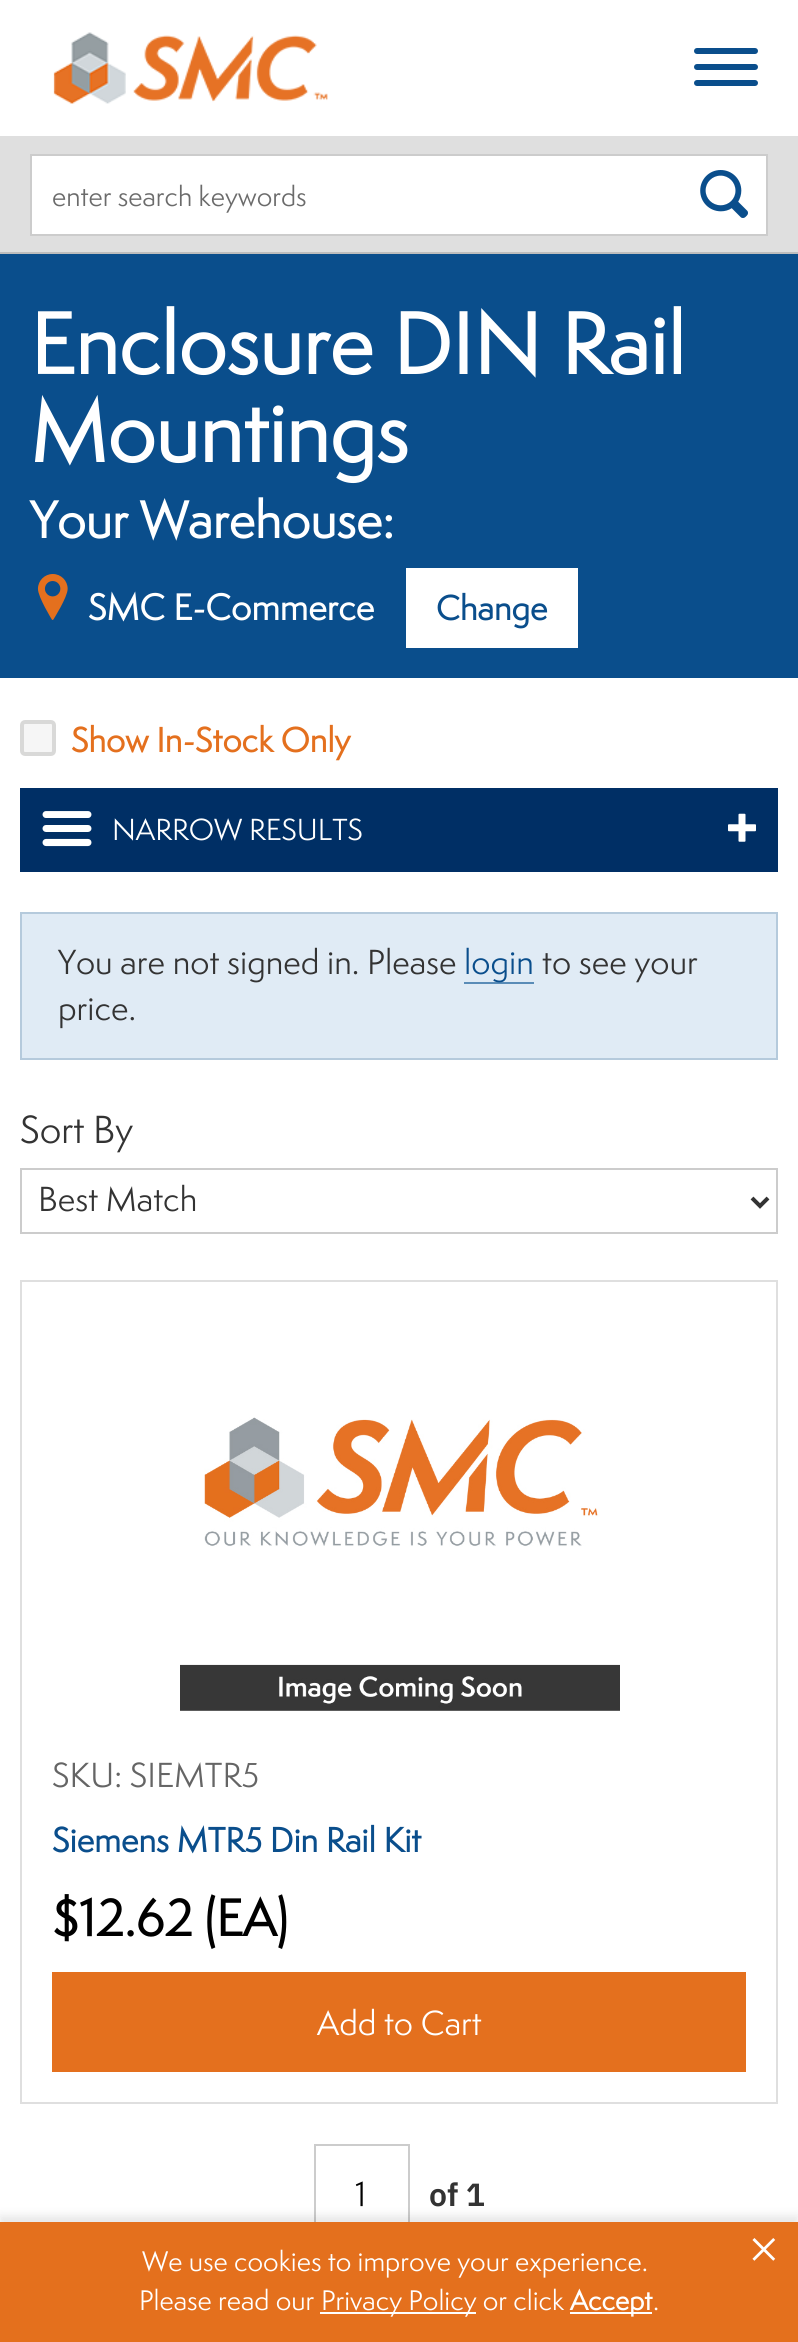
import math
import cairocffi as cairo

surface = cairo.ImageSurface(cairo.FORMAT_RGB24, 798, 2342)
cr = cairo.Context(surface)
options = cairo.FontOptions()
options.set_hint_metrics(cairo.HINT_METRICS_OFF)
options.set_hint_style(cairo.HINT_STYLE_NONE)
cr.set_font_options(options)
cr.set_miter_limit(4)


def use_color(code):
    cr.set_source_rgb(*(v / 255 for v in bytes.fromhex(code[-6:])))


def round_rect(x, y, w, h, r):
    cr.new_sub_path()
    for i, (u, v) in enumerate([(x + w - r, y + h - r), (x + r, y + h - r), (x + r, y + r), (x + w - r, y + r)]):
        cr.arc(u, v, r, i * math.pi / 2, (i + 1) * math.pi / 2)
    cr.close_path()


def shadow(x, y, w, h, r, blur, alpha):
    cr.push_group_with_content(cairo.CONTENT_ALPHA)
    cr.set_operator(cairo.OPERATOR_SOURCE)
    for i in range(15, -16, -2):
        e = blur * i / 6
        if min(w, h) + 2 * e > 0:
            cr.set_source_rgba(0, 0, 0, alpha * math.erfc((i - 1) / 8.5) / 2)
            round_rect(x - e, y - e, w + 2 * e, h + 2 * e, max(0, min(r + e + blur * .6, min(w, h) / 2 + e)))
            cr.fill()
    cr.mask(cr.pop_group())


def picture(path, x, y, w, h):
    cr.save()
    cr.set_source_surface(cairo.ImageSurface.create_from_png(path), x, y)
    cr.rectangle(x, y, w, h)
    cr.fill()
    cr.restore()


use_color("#ffffff")
cr.paint()
picture("img1.png", 53, 32, 275, 72)
use_color("#0a4e8c")
round_rect(694, 48, 64, 6, 3)
cr.fill()
round_rect(694, 64, 64, 6, 3)
cr.fill()
round_rect(694, 80, 64, 6, 3)
cr.fill()
use_color("#dfdfdf")
cr.rectangle(0, 136, 798, 116)
cr.fill()
use_color("#ffffff")
cr.rectangle(31, 155, 736, 80)
cr.fill_preserve()
use_color("#cccccc")
cr.stroke()
cr.select_font_face("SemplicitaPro")
cr.set_font_size(26)
use_color("#6b6b6b")
cr.move_to(52, 206)
cr.show_text("enter search keywords")
picture("img2.png", 700, 170, 48, 48)
use_color("#bdbdbd")
cr.rectangle(0, 252, 798, 2)
cr.fill()
use_color("#0a4e8c")
cr.rectangle(0, 254, 798, 424)
cr.fill()
cr.select_font_face("SemplicitaPro", cairo.FONT_SLANT_NORMAL, cairo.FONT_WEIGHT_BOLD)
cr.set_font_size(80)
use_color("#ffffff")
cr.move_to(30, 374)
cr.show_text("Enclosure DIN Rail")
cr.move_to(30, 462)
cr.show_text("Mountings")
cr.set_font_size(48)
cr.move_to(30, 538)
cr.show_text("Your Warehouse:")
picture("img3.png", 37, 574, 31, 46)
cr.set_font_size(34)
cr.move_to(88, 620)
cr.show_text("SMC E-Commerce")
cr.rectangle(406, 568, 172, 80)
cr.fill()
cr.set_font_size(32)
use_color("#0a4e8c")
cr.move_to(436, 620)
cr.show_text("Change")
use_color("#f6f6f6")
round_rect(22, 722, 32, 32, 3)
cr.fill_preserve()
use_color("#d9d9d8")
cr.set_line_width(4)
cr.stroke()
use_color("#e4701e")
cr.move_to(71, 752)
cr.show_text("Show In-Stock Only")
use_color("#002f65")
cr.rectangle(20, 788, 758, 84)
cr.fill()
picture("img4.png", 42, 811, 50, 36)
cr.select_font_face("SemplicitaPro")
cr.set_font_size(28)
use_color("#ffffff")
cr.move_to(112, 840)
cr.show_text("NARROW RESULTS")
picture("img5.png", 728, 813, 28, 29)
use_color("#e0ebf5")
cr.rectangle(21, 913, 756, 146)
cr.fill_preserve()
use_color("#b5cadc")
cr.set_line_width(2)
cr.stroke()
cr.set_font_size(32)
use_color("#333333")
cr.move_to(58, 974)
cr.show_text("You are not signed in. Please")
use_color("#5a8cb7")
cr.rectangle(464, 982, 70, 2)
cr.fill()
use_color("#0a4e8c")
cr.move_to(464, 974)
cr.show_text("login")
use_color("#333333")
cr.move_to(542, 974)
cr.show_text("to see your")
cr.move_to(58, 1020)
cr.show_text("price.")
cr.set_font_size(36)
cr.move_to(20, 1143)
cr.show_text("Sort By")
cr.rectangle(21, 1169, 756, 64)
use_color("#cccccc")
cr.stroke()
cr.new_path()
cr.move_to(752, 1198)
cr.line_to(760, 1206)
cr.line_to(768, 1198)
use_color("#333333")
cr.set_line_width(4)
cr.stroke()
cr.set_font_size(32)
cr.move_to(38, 1211)
cr.show_text("Best Match")
cr.rectangle(21, 1281, 756, 822)
use_color("#dfdfdf")
cr.set_line_width(2)
cr.stroke()
picture("img6.png", 180, 1417, 440, 294)
use_color("#656565")
cr.move_to(52, 1787)
cr.show_text("SKU: SIEMTR5")
cr.select_font_face("SemplicitaPro", cairo.FONT_SLANT_NORMAL, cairo.FONT_WEIGHT_BOLD)
use_color("#0a4e8c")
cr.move_to(52, 1852)
cr.show_text("Siemens MTR5 Din Rail Kit")
cr.set_font_size(48)
use_color("#000000")
cr.move_to(52, 1936)
cr.show_text("$12.62 (EA)")
use_color("#e4701e")
cr.rectangle(52, 1972, 694, 100)
cr.fill()
cr.select_font_face("SemplicitaPro")
cr.set_font_size(32)
use_color("#ffffff")
cr.move_to(317, 2035)
cr.show_text("Add to Cart")
cr.rectangle(315, 2145, 94, 98)
use_color("#cccccc")
cr.stroke()
use_color("#000000")
cr.move_to(355, 2206)
cr.show_text("1")
cr.select_font_face("IBM Plex Sans SemiBold")
use_color("#333333")
cr.move_to(429, 2206)
cr.show_text("of 1")
use_color("#000000")
shadow(0, 2216, 798, 120, 0, 5, 0.1)
use_color("#e4701d")
cr.rectangle(0, 2222, 798, 120)
cr.fill()
cr.select_font_face("SemplicitaPro")
cr.set_font_size(26)
use_color("#ffffff")
cr.move_to(142, 2271)
cr.show_text("We use cookies to improve your experience.")
cr.move_to(139, 2310)
cr.show_text("Please read our")
cr.rectangle(320, 2312, 156, 2)
cr.fill()
cr.move_to(321, 2310)
cr.show_text("Privacy Policy or click")
cr.rectangle(570, 2312, 82, 2)
cr.fill()
cr.select_font_face("SemplicitaPro", cairo.FONT_SLANT_NORMAL, cairo.FONT_WEIGHT_BOLD)
cr.move_to(570, 2310)
cr.show_text("Accept")
cr.select_font_face("SemplicitaPro")
cr.move_to(653, 2310)
cr.show_text(".")
cr.select_font_face("Liberation Serif")
cr.set_font_size(56)
cr.move_to(748, 2268)
cr.show_text("×")
surface.write_to_png("result.png")
